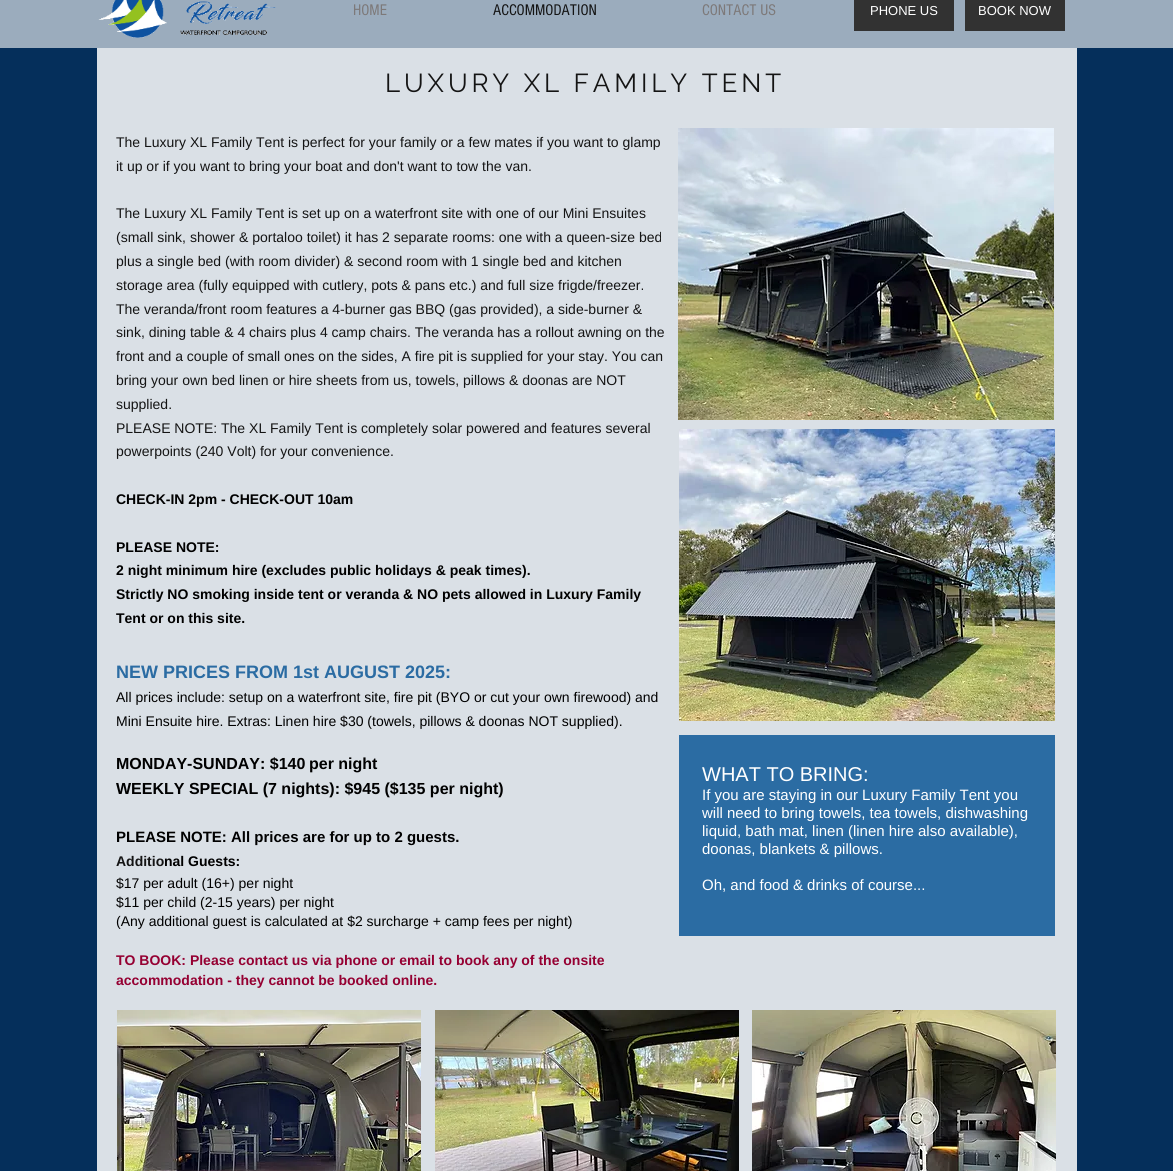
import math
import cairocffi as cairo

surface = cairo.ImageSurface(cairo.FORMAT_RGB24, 1173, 1171)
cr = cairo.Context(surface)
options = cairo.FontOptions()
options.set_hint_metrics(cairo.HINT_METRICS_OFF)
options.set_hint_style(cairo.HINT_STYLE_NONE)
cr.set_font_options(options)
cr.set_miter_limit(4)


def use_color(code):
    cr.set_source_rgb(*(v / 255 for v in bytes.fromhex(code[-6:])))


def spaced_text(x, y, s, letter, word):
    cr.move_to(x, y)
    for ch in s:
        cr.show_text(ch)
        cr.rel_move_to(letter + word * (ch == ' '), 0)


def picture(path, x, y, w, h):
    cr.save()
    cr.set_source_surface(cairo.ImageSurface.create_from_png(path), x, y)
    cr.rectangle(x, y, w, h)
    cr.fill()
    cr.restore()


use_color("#052f5b")
cr.paint()
use_color("#9bacbd")
cr.rectangle(0, 0, 1173, 48)
cr.fill()
picture("img1.png", 98, 0, 178, 38)
cr.select_font_face("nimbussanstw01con")
cr.set_font_size(16)
use_color("#7d7979")
cr.move_to(353, 15)
cr.show_text("HOME")
use_color("#141414")
cr.move_to(493, 15)
cr.show_text("ACCOMMODATION")
use_color("#7d7979")
cr.move_to(702, 15)
cr.show_text("CONTACT US")
use_color("#323232")
cr.rectangle(854, 0, 100, 31)
cr.fill()
cr.select_font_face("Liberation Sans")
cr.set_font_size(13)
use_color("#ffffff")
cr.move_to(870, 15)
cr.show_text("PHONE US")
use_color("#323232")
cr.rectangle(965, 0, 100, 31)
cr.fill()
use_color("#ffffff")
cr.move_to(978, 15)
cr.show_text("BOOK NOW")
use_color("#dae0e6")
cr.rectangle(97, 48, 980, 1123)
cr.fill()
cr.select_font_face("Raleway")
cr.set_font_size(26)
use_color("#141414")
spaced_text(385, 92, "LUXURY XL FAMILY TENT", 3.9, 0)
cr.select_font_face("Liberation Sans")
cr.set_font_size(14)
cr.move_to(116, 147)
cr.show_text("The Luxury XL Family Tent is perfect for your family or a few mates if you want to glamp")
cr.move_to(116, 171)
cr.show_text("it up or if you want to bring your boat and don't want to tow the van.")
cr.move_to(116, 218)
cr.show_text("The Luxury XL Family Tent is set up on a waterfront site with one of our Mini Ensuites")
cr.move_to(116, 242)
cr.show_text("(small sink, shower & portaloo toilet) it has 2 separate rooms: one with a queen-size bed")
cr.move_to(116, 266)
cr.show_text("plus a single bed (with room divider) & second room with 1 single bed and kitchen")
cr.move_to(116, 290)
cr.show_text("storage area (fully equipped with cutlery, pots & pans etc.) and full size frigde/freezer.")
cr.move_to(116, 314)
cr.show_text("The veranda/front room features a 4-burner gas BBQ (gas provided), a side-burner &")
cr.move_to(116, 337)
cr.show_text("sink, dining table & 4 chairs plus 4 camp chairs. The veranda has a rollout awning on the")
cr.move_to(116, 361)
cr.show_text("front and a couple of small ones on the sides, A fire pit is supplied for your stay. You can")
cr.move_to(116, 385)
cr.show_text("bring your own bed linen or hire sheets from us, towels, pillows & doonas are NOT")
cr.move_to(116, 409)
cr.show_text("supplied.")
cr.move_to(116, 433)
cr.show_text("PLEASE NOTE: The XL Family Tent is completely solar powered and features several")
cr.move_to(116, 456)
cr.show_text("powerpoints (240 Volt) for your convenience.")
cr.select_font_face("Liberation Sans", cairo.FONT_SLANT_NORMAL, cairo.FONT_WEIGHT_BOLD)
use_color("#000000")
cr.move_to(116, 504)
cr.show_text("CHECK-IN 2pm - CHECK-OUT 10am")
cr.move_to(116, 552)
cr.show_text("PLEASE NOTE:")
cr.move_to(116, 575)
cr.show_text("2 night minimum hire (excludes public holidays & peak times).")
cr.move_to(116, 599)
cr.show_text("Strictly NO smoking inside tent or veranda & NO pets allowed in Luxury Family")
cr.move_to(116, 623)
cr.show_text("Tent or on this site.")
cr.set_font_size(18)
use_color("#2b6ca3")
cr.move_to(116, 678)
cr.show_text("NEW PRICES FROM 1st AUGUST 2025:")
cr.select_font_face("Liberation Sans")
cr.set_font_size(14)
use_color("#000000")
cr.move_to(116, 702)
cr.show_text("All prices include: setup on a waterfront site, fire pit (BYO or cut your own firewood) and")
cr.move_to(116, 726)
cr.show_text("Mini Ensuite hire. Extras: Linen hire $30 (towels, pillows & doonas NOT supplied).")
cr.select_font_face("Liberation Sans", cairo.FONT_SLANT_NORMAL, cairo.FONT_WEIGHT_BOLD)
cr.set_font_size(16)
cr.move_to(116, 769)
cr.show_text("MONDAY-SUNDAY: $140")
cr.move_to(309, 769)
cr.show_text("per night")
cr.move_to(116, 794)
cr.show_text("WEEKLY SPECIAL (7 nights): $945 ($135 per night)")
cr.set_font_size(15)
cr.move_to(116, 842)
cr.show_text("PLEASE NOTE: All prices are for up to 2 guests.")
cr.set_font_size(14)
use_color("#141414")
cr.move_to(116, 866)
cr.show_text("Additio")
use_color("#000000")
cr.move_to(164, 866)
cr.show_text("nal Guests:")
cr.select_font_face("Liberation Sans")
cr.move_to(116, 888)
cr.show_text("$17 per adult (16+) per night")
cr.move_to(116, 907)
cr.show_text("$11 per child (2-15 years) per night")
cr.move_to(116, 926)
cr.show_text("(Any additional guest is calculated at $2 surcharge + camp fees per night)")
cr.select_font_face("Liberation Sans", cairo.FONT_SLANT_NORMAL, cairo.FONT_WEIGHT_BOLD)
use_color("#950032")
cr.move_to(116, 965)
cr.show_text("TO BOOK: Please contact us via phone or email to book any of the onsite")
cr.move_to(116, 985)
cr.show_text("accommodation - they cannot be booked online.")
picture("img2.png", 678, 128, 376, 292)
picture("img3.png", 679, 429, 376, 292)
use_color("#2b6ca3")
cr.rectangle(679, 735, 376, 201)
cr.fill()
cr.select_font_face("Liberation Sans")
cr.set_font_size(20)
use_color("#ffffff")
cr.move_to(702, 781)
cr.show_text("WHAT TO BRING:")
cr.set_font_size(15)
cr.move_to(702, 800)
cr.show_text("If you are staying in our Luxury Family Tent you")
cr.move_to(702, 818)
cr.show_text("will need to bring towels, tea towels, dishwashing")
cr.move_to(702, 836)
cr.show_text("liquid, bath mat, linen (linen hire also available),")
cr.move_to(702, 854)
cr.show_text("doonas, blankets & pillows.")
cr.move_to(702, 890)
cr.show_text("Oh, and food & drinks of course...")
picture("img4.png", 117, 1010, 304, 161)
picture("img5.png", 435, 1010, 304, 161)
picture("img6.png", 752, 1010, 304, 161)
surface.write_to_png("result.png")
